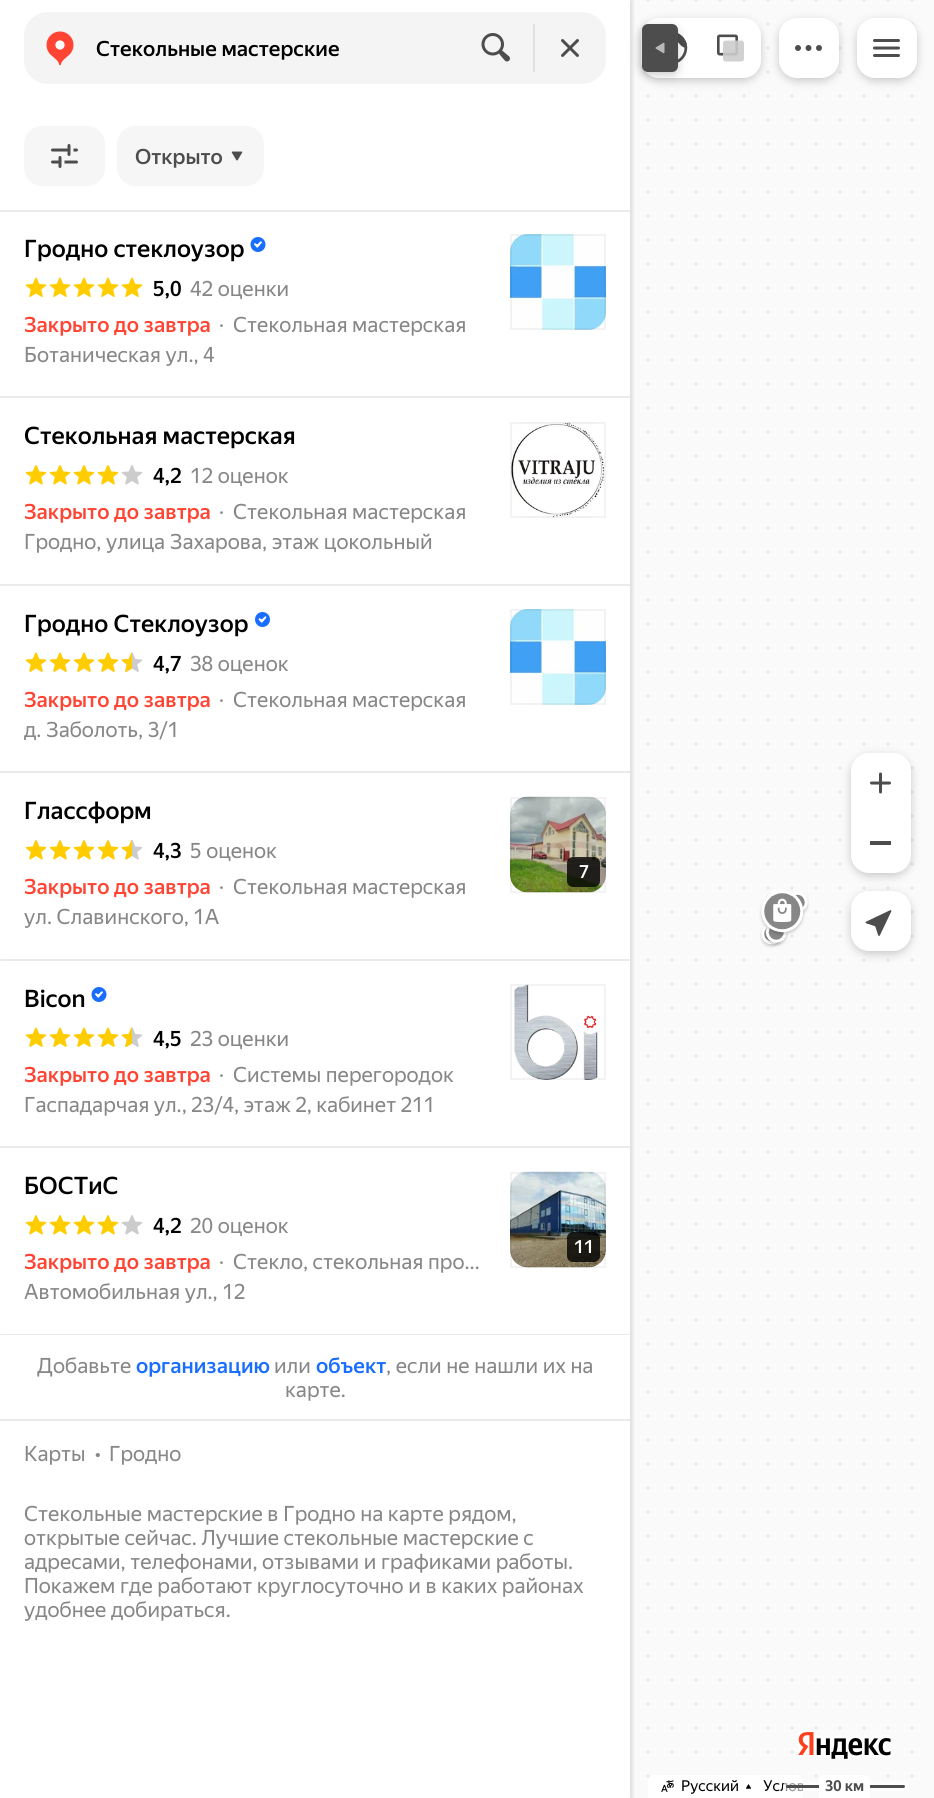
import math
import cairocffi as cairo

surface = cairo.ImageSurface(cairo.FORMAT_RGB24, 934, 1798)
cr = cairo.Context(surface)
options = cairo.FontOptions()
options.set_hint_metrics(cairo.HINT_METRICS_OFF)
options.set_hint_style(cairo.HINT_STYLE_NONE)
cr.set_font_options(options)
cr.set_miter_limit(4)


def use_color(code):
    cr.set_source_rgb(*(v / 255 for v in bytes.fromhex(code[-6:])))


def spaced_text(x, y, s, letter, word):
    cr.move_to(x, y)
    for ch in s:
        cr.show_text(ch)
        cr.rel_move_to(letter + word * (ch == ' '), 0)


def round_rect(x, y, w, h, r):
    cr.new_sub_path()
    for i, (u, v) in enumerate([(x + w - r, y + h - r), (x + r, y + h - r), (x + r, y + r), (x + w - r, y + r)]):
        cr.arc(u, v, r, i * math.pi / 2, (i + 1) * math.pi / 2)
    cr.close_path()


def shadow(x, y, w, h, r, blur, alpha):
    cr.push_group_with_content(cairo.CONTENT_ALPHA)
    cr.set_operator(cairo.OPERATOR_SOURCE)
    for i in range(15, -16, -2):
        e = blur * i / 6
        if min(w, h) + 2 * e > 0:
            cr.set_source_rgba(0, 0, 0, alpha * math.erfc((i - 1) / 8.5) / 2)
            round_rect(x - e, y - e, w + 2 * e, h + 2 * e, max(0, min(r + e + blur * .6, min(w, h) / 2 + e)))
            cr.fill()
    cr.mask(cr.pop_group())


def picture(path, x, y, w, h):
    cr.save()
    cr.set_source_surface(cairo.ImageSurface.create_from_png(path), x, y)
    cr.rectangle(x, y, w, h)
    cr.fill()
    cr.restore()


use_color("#ffffff")
cr.paint()
picture("img1.png", 630, 0, 304, 1798)
use_color("#000000")
shadow(3, 0, 630, 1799, 0, 1.5, 0.1)
shadow(641, 21, 120, 60, 18, 4.5, 0.2)
use_color("#ffffff")
cr.new_path()
cr.move_to(659, 18)
cr.line_to(701, 18)
cr.line_to(701, 78)
cr.line_to(659, 78)
cr.curve_to(649, 78, 641, 70, 641, 60)
cr.line_to(641, 36)
cr.curve_to(641, 26, 649, 18, 659, 18)
cr.close_path()
cr.fill()
picture("img5.png", 678, 33, 10, 30)
use_color("#000000")
shadow(642, 27, 36, 48, 6, 4.5, 0.2)
use_color("#ffffff")
cr.rectangle(1, 0, 629, 1798)
cr.fill()
use_color("#f4f4f4")
round_rect(24, 12, 582, 72, 24)
cr.fill()
picture("img2.png", 46, 31, 28, 35)
cr.select_font_face("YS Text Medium")
cr.set_font_size(21)
use_color("#000000")
cr.move_to(96, 56)
cr.show_text("Стекольные мастерские")
picture("img3.png", 481, 33, 29, 29)
use_color("#e0e0e0")
cr.rectangle(533, 24, 2, 48)
cr.fill()
picture("img4.png", 561, 39, 18, 18)
use_color("#ffffff")
cr.new_path()
cr.move_to(701, 18)
cr.line_to(743, 18)
cr.curve_to(753, 18, 761, 26, 761, 36)
cr.line_to(761, 60)
cr.curve_to(761, 70, 753, 78, 743, 78)
cr.line_to(701, 78)
cr.close_path()
cr.fill()
picture("img6.png", 717, 34, 27, 28)
use_color("#000000")
shadow(779, 21, 60, 60, 18, 4.5, 0.2)
use_color("#ffffff")
round_rect(779, 18, 60, 60, 18)
cr.fill()
picture("img7.png", 795, 45, 27, 6)
use_color("#000000")
shadow(857, 21, 60, 60, 18, 4.5, 0.2)
use_color("#ffffff")
round_rect(857, 18, 60, 60, 18)
cr.fill()
picture("img8.png", 873, 39, 27, 18)
use_color("#000000")
shadow(851, 756, 60, 120, 18, 4.5, 0.2)
use_color("#ffffff")
cr.new_path()
cr.move_to(869, 753)
cr.line_to(893, 753)
cr.curve_to(903, 753, 911, 761, 911, 771)
cr.line_to(911, 813)
cr.line_to(851, 813)
cr.line_to(851, 771)
cr.curve_to(851, 761, 859, 753, 869, 753)
cr.close_path()
cr.fill()
picture("img9.png", 870, 772, 21, 22)
cr.new_path()
cr.move_to(851, 813)
cr.line_to(911, 813)
cr.line_to(911, 855)
cr.curve_to(911, 865, 903, 873, 893, 873)
cr.line_to(869, 873)
cr.curve_to(859, 873, 851, 865, 851, 855)
cr.close_path()
cr.fill()
use_color("#4d4d4d")
cr.rectangle(870, 841, 21, 4)
cr.fill()
use_color("#000000")
shadow(851, 894, 60, 60, 18, 4.5, 0.2)
use_color("#ffffff")
round_rect(851, 891, 60, 60, 18)
cr.fill()
picture("img10.png", 865, 910, 27, 26)
use_color("#4d4d4d")
round_rect(642, 24, 36, 48, 6)
cr.fill()
picture("img11.png", 655, 42, 10, 12)
use_color("#ebebeb")
cr.rectangle(0, 210, 630, 2)
cr.fill()
use_color("#f6f6f6")
round_rect(24, 126, 81, 60, 18)
cr.fill()
picture("img12.png", 51, 144, 27, 24)
round_rect(117, 126, 147, 60, 18)
cr.fill()
use_color("#4d4d4d")
cr.move_to(135, 164)
cr.show_text("Открыто")
picture("img13.png", 231, 151, 12, 10)
use_color("#ebebeb")
cr.rectangle(0, 396, 630, 2)
cr.fill()
cr.set_font_size(24)
use_color("#000000")
cr.move_to(24, 257)
cr.show_text("Гродно стеклоузор")
picture("img14.png", 250, 237, 16, 15)
picture("img15.png", 510, 234, 96, 96)
cr.rectangle(511, 235, 94, 94)
cr.set_source_rgba(0, 0, 0, 0.05)
cr.stroke()
picture("img16.png", 25, 277, 22, 20)
picture("img16.png", 49, 277, 22, 20)
picture("img16.png", 73, 277, 22, 20)
picture("img16.png", 97, 277, 22, 20)
picture("img16.png", 121, 277, 22, 20)
cr.set_font_size(21)
use_color("#000000")
cr.move_to(153, 296)
cr.show_text("5,0")
cr.select_font_face("YS Text")
use_color("#878787")
cr.move_to(190, 296)
cr.show_text("42 оценки")
cr.select_font_face("YS Text Medium")
use_color("#ff4433")
cr.move_to(24, 332)
cr.show_text("Закрыто до завтра")
cr.select_font_face("YS Text")
use_color("#878787")
cr.move_to(219, 332)
cr.show_text("·")
cr.move_to(233, 332)
cr.show_text("Стекольная мастерская")
cr.move_to(24, 362)
cr.show_text("Ботаническая ул., 4")
use_color("#ebebeb")
cr.rectangle(0, 584, 630, 2)
cr.fill()
cr.select_font_face("YS Text Medium")
cr.set_font_size(24)
use_color("#000000")
cr.move_to(24, 444)
cr.show_text("Стекольная мастерская")
picture("img17.png", 511, 422, 94, 96)
cr.rectangle(511, 423, 94, 94)
cr.set_source_rgba(0, 0, 0, 0.05)
cr.stroke()
picture("img18.png", 25, 465, 22, 20)
picture("img18.png", 49, 465, 22, 20)
picture("img18.png", 73, 465, 22, 20)
picture("img18.png", 97, 465, 22, 20)
picture("img19.png", 121, 465, 22, 20)
cr.set_font_size(21)
use_color("#000000")
cr.move_to(153, 483)
cr.show_text("4,2")
cr.select_font_face("YS Text")
use_color("#878787")
cr.move_to(190, 483)
cr.show_text("12 оценок")
cr.select_font_face("YS Text Medium")
use_color("#ff4433")
cr.move_to(24, 519)
cr.show_text("Закрыто до завтра")
cr.select_font_face("YS Text")
use_color("#878787")
cr.move_to(219, 519)
cr.show_text("·")
cr.move_to(233, 519)
cr.show_text("Стекольная мастерская")
cr.move_to(24, 549)
cr.show_text("Гродно, улица Захарова, этаж цокольный")
use_color("#ebebeb")
cr.rectangle(0, 771, 630, 2)
cr.fill()
cr.select_font_face("YS Text Medium")
cr.set_font_size(24)
use_color("#000000")
cr.move_to(24, 632)
cr.show_text("Гродно Стеклоузор")
picture("img20.png", 255, 612, 15, 15)
picture("img15.png", 510, 609, 96, 96)
cr.rectangle(511, 610, 94, 94)
cr.set_source_rgba(0, 0, 0, 0.05)
cr.stroke()
picture("img16.png", 25, 652, 22, 20)
picture("img16.png", 49, 652, 22, 20)
picture("img16.png", 73, 652, 22, 20)
picture("img16.png", 97, 652, 22, 20)
picture("img21.png", 121, 652, 22, 20)
cr.set_font_size(21)
use_color("#000000")
cr.move_to(153, 671)
cr.show_text("4,7")
cr.select_font_face("YS Text")
use_color("#878787")
cr.move_to(190, 671)
cr.show_text("38 оценок")
cr.select_font_face("YS Text Medium")
use_color("#ff4433")
cr.move_to(24, 707)
cr.show_text("Закрыто до завтра")
cr.select_font_face("YS Text")
use_color("#878787")
cr.move_to(219, 707)
cr.show_text("·")
cr.move_to(233, 707)
cr.show_text("Стекольная мастерская")
cr.move_to(24, 737)
cr.show_text("д. Заболоть, 3/1")
use_color("#ebebeb")
cr.rectangle(0, 959, 630, 2)
cr.fill()
cr.select_font_face("YS Text Medium")
cr.set_font_size(24)
use_color("#000000")
cr.move_to(24, 819)
cr.show_text("Глассформ")
picture("img18.png", 25, 840, 22, 20)
picture("img18.png", 49, 840, 22, 20)
picture("img18.png", 73, 840, 22, 20)
picture("img18.png", 97, 840, 22, 20)
picture("img22.png", 121, 840, 22, 20)
cr.set_font_size(21)
cr.move_to(153, 858)
cr.show_text("4,3")
cr.select_font_face("YS Text")
use_color("#878787")
cr.move_to(190, 858)
cr.show_text("5 оценок")
picture("img23.png", 510, 796, 96, 97)
cr.rectangle(511, 798, 94, 94)
cr.set_source_rgba(0, 0, 0, 0.05)
cr.stroke()
cr.set_source_rgba(0, 0, 0, 0.8)
round_rect(567, 857, 33, 30, 6)
cr.fill()
cr.select_font_face("YS Text Medium")
cr.set_font_size(18)
use_color("#ffffff")
cr.move_to(579, 878)
cr.show_text("7")
cr.set_font_size(21)
use_color("#ff4433")
cr.move_to(24, 894)
cr.show_text("Закрыто до завтра")
cr.select_font_face("YS Text")
use_color("#878787")
cr.move_to(219, 894)
cr.show_text("·")
cr.move_to(233, 894)
cr.show_text("Стекольная мастерская")
cr.move_to(24, 924)
cr.show_text("ул. Славинского, 1А")
use_color("#ebebeb")
cr.rectangle(0, 1146, 630, 2)
cr.fill()
cr.select_font_face("YS Text Medium")
cr.set_font_size(24)
use_color("#000000")
cr.move_to(24, 1007)
cr.show_text("Bicon")
picture("img14.png", 91, 987, 16, 15)
picture("img24.png", 514, 984, 84, 96)
cr.rectangle(511, 985, 94, 94)
cr.set_source_rgba(0, 0, 0, 0.05)
cr.stroke()
picture("img16.png", 25, 1027, 22, 20)
picture("img16.png", 49, 1027, 22, 20)
picture("img16.png", 73, 1027, 22, 20)
picture("img16.png", 97, 1027, 22, 20)
picture("img21.png", 121, 1027, 22, 20)
cr.set_font_size(21)
use_color("#000000")
cr.move_to(153, 1046)
cr.show_text("4,5")
cr.select_font_face("YS Text")
use_color("#878787")
cr.move_to(190, 1046)
cr.show_text("23 оценки")
cr.select_font_face("YS Text Medium")
use_color("#ff4433")
cr.move_to(24, 1082)
cr.show_text("Закрыто до завтра")
cr.select_font_face("YS Text")
use_color("#878787")
cr.move_to(219, 1082)
cr.show_text("·")
cr.move_to(233, 1082)
cr.show_text("Системы перегородок")
spaced_text(24, 1112, "Гаспадарчая ул., 23/4, этаж 2, кабинет 211", 0, -0.25)
use_color("#ebebeb")
cr.rectangle(0, 1334, 630, 1)
cr.fill()
cr.select_font_face("YS Text Medium")
cr.set_font_size(24)
use_color("#000000")
cr.move_to(24, 1194)
cr.show_text("БОСТиС")
picture("img18.png", 25, 1215, 22, 20)
picture("img18.png", 49, 1215, 22, 20)
picture("img18.png", 73, 1215, 22, 20)
picture("img18.png", 97, 1215, 22, 20)
picture("img19.png", 121, 1215, 22, 20)
cr.set_font_size(21)
cr.move_to(153, 1233)
cr.show_text("4,2")
cr.select_font_face("YS Text")
use_color("#878787")
cr.move_to(190, 1233)
cr.show_text("20 оценок")
picture("img25.png", 510, 1171, 96, 97)
cr.rectangle(511, 1173, 94, 94)
cr.set_source_rgba(0, 0, 0, 0.05)
cr.stroke()
cr.set_source_rgba(0, 0, 0, 0.8)
round_rect(567, 1232, 33, 30, 6)
cr.fill()
cr.select_font_face("YS Text Medium")
cr.set_font_size(18)
use_color("#ffffff")
cr.move_to(574, 1253)
cr.show_text("11")
cr.set_font_size(21)
use_color("#ff4433")
cr.move_to(24, 1269)
cr.show_text("Закрыто до завтра")
cr.select_font_face("YS Text")
use_color("#878787")
cr.move_to(219, 1269)
cr.show_text("·")
cr.move_to(233, 1269)
cr.show_text("Стекло, стекольная про…")
cr.move_to(24, 1299)
cr.show_text("Автомобильная ул., 12")
cr.move_to(37, 1373)
cr.show_text("Добавьте")
cr.select_font_face("YS Text Medium")
use_color("#196dff")
cr.move_to(136, 1373)
cr.show_text("организацию")
cr.select_font_face("YS Text")
use_color("#878787")
cr.move_to(274, 1373)
cr.show_text("или")
cr.select_font_face("YS Text Medium")
use_color("#196dff")
cr.move_to(316, 1373)
cr.show_text("объект")
cr.select_font_face("YS Text")
use_color("#878787")
cr.move_to(386, 1373)
cr.show_text(", если не нашли их на")
cr.move_to(285, 1397)
cr.show_text("карте.")
use_color("#ebebeb")
cr.rectangle(0, 1419, 630, 2)
cr.fill()
use_color("#878787")
cr.move_to(24, 1461)
cr.show_text("Карты")
cr.move_to(95, 1461)
cr.show_text("•")
cr.move_to(109, 1461)
cr.show_text("Гродно")
cr.move_to(24, 1521)
cr.show_text("Стекольные мастерские в Гродно на карте рядом,")
cr.move_to(24, 1545)
cr.show_text("открытые сейчас. Лучшие стекольные мастерские с")
cr.move_to(24, 1569)
cr.show_text("адресами, телефонами, отзывами и графиками работы.")
cr.move_to(24, 1593)
cr.show_text("Покажем где работают круглосуточно и в каких районах")
cr.move_to(24, 1617)
cr.show_text("удобнее добираться.")
picture("img26.png", 798, 1732, 93, 27)
use_color("#ffffff")
cr.new_path()
cr.move_to(654, 1775)
cr.line_to(797, 1775)
cr.curve_to(800.5, 1775, 803, 1777.5, 803, 1781)
cr.line_to(803, 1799)
cr.line_to(648, 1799)
cr.line_to(648, 1781)
cr.curve_to(648, 1777.5, 650.5, 1775, 654, 1775)
cr.close_path()
cr.fill()
picture("img27.png", 661, 1780, 13, 13)
cr.set_font_size(15)
use_color("#000000")
cr.move_to(681, 1791)
cr.show_text("Русский")
picture("img28.png", 746, 1784, 6, 5)
cr.save()
cr.new_path()
cr.move_to(654, 1775)
cr.line_to(797, 1775)
cr.curve_to(800.5, 1775, 803, 1777.5, 803, 1781)
cr.line_to(803, 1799)
cr.line_to(648, 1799)
cr.line_to(648, 1781)
cr.curve_to(648, 1777.5, 650.5, 1775, 654, 1775)
cr.close_path()
cr.clip()
cr.move_to(763, 1791)
cr.show_text("Услов")
cr.restore()
cr.set_source_rgba(1, 1, 1, 0.6)
round_rect(783, 1782, 125, 9, 4.5)
cr.fill()
use_color("#4d4d4d")
round_rect(786, 1785, 119, 3, 1.5)
cr.fill()
use_color("#ffffff")
cr.new_path()
cr.move_to(825, 1775)
cr.line_to(864, 1775)
cr.curve_to(867.5, 1775, 870, 1777.5, 870, 1781)
cr.line_to(870, 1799)
cr.line_to(819, 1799)
cr.line_to(819, 1781)
cr.curve_to(819, 1777.5, 821.5, 1775, 825, 1775)
cr.close_path()
cr.fill()
cr.select_font_face("YS Text", cairo.FONT_SLANT_NORMAL, cairo.FONT_WEIGHT_BOLD)
use_color("#4d4d4d")
cr.move_to(825, 1791)
cr.show_text("30 км")
picture("img29.png", 766, 889, 18, 9)
picture("img32.png", 792, 892, 17, 23)
picture("img33.png", 760, 924, 23, 24)
picture("img34.png", 764, 926, 24, 20)
picture("img30.png", 759, 890, 46, 46)
picture("img31.png", 773, 898, 19, 25)
surface.write_to_png("result.png")
